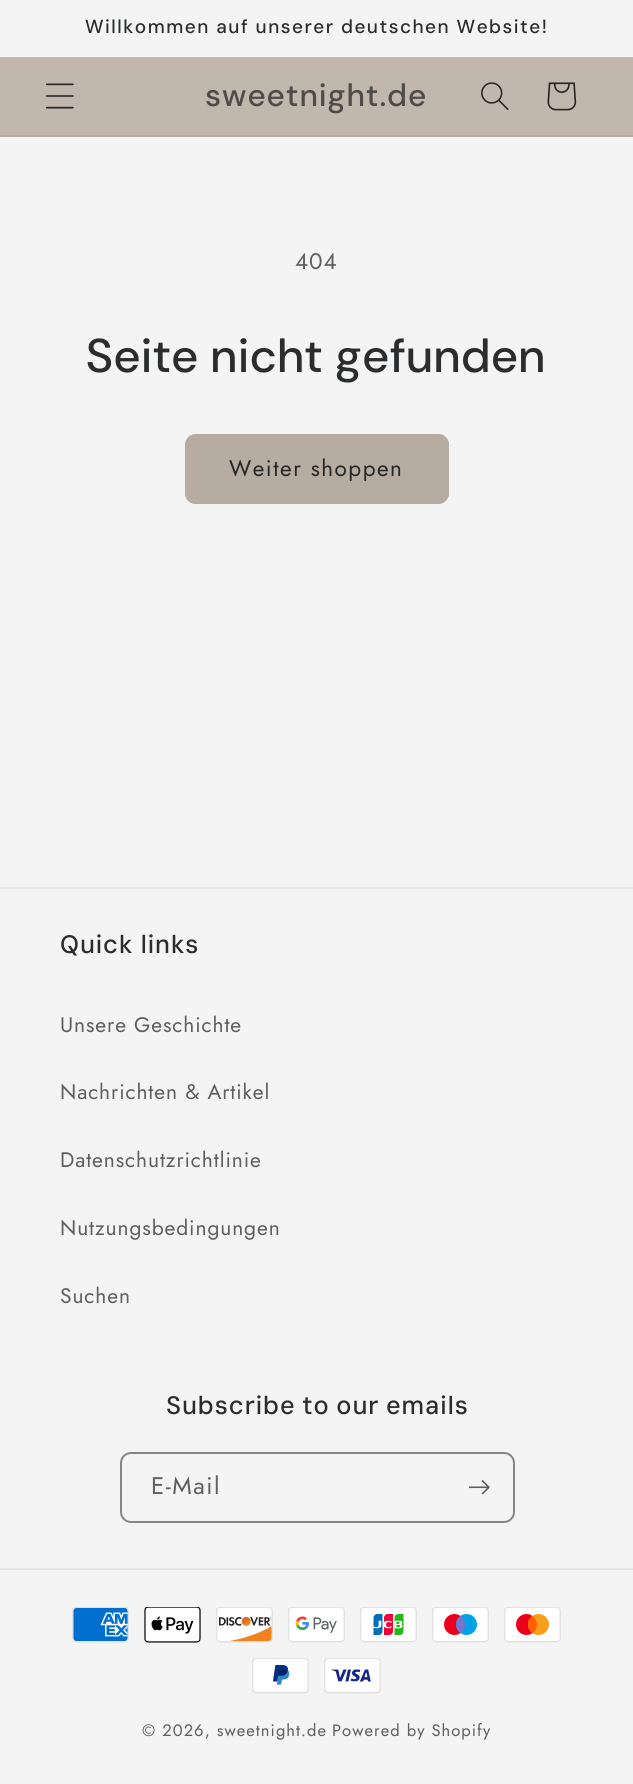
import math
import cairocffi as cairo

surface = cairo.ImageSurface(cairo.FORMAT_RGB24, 633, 1784)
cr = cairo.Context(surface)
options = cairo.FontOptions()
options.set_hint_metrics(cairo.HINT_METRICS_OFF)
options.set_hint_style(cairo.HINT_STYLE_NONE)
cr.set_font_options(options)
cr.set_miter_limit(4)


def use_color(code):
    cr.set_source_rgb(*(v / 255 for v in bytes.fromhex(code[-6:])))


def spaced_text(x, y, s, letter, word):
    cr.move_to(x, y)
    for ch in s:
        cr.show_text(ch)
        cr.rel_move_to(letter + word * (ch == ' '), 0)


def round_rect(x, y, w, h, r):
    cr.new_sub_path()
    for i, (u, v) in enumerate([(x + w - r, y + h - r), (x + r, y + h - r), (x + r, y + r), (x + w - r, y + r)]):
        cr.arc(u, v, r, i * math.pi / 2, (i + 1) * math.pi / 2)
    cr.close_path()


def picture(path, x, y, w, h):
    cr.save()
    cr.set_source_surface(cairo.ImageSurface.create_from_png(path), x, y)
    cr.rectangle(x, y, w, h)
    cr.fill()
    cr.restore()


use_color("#f4f4f4")
cr.paint()
cr.select_font_face("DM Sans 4 Medium")
cr.set_font_size(18.9)
use_color("#2b2c2d")
spaced_text(85, 33, "Willkommen auf unserer deutschen Website!", 1.5, 0)
use_color("#c2b7ac")
cr.rectangle(0, 57, 633, 78)
cr.fill()
use_color("#b6aba1")
cr.rectangle(0, 135, 633, 2)
cr.fill()
picture("img1.png", 45, 83, 29, 26)
cr.select_font_face("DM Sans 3 Medium")
cr.set_font_size(31.5)
use_color("#4d4a48")
spaced_text(205, 106, "sweetnight.de", 0.95, 0)
picture("img2.png", 481, 82, 28, 28)
picture("img3.png", 547, 82, 30, 29)
cr.select_font_face("Jost")
cr.set_font_size(22.5)
use_color("#5d5e5f")
spaced_text(295, 269, "404", 0.9, 0)
cr.select_font_face("DM Sans Medium")
cr.set_font_size(47.25)
use_color("#2b2c2d")
spaced_text(86, 372, "Seite nicht gefunden", 0.95, 0)
use_color("#b7aca2")
round_rect(185, 434, 264, 70, 11)
cr.fill()
round_rect(186, 435, 262, 68, 10)
cr.stroke()
cr.select_font_face("Jost")
cr.set_font_size(22.5)
use_color("#262626")
spaced_text(229, 476, "Weiter shoppen", 1.5, 0)
use_color("#e4e4e4")
cr.rectangle(0, 887, 633, 2)
cr.fill()
cr.select_font_face("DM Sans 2 Medium")
cr.set_font_size(25.25)
use_color("#2b2c2d")
spaced_text(60, 953, "Quick links", 0.95, 0)
cr.select_font_face("Jost")
cr.set_font_size(21)
use_color("#5d5e5f")
spaced_text(60, 1032, "Unsere Geschichte", 0.9, 0)
spaced_text(60, 1099, "Nachrichten & Artikel", 0.9, 0)
spaced_text(60, 1167, "Datenschutzrichtlinie", 0.9, 0)
spaced_text(60, 1235, "Nutzungsbedingungen", 0.9, 0)
spaced_text(60, 1303, "Suchen", 0.9, 0)
cr.select_font_face("DM Sans 2 Medium")
cr.set_font_size(25.25)
use_color("#2b2c2d")
spaced_text(166, 1414, "Subscribe to our emails", 0.95, -1)
round_rect(121, 1453, 393, 69, 10)
use_color("#858687")
cr.stroke()
cr.select_font_face("Jost")
cr.set_font_size(24)
use_color("#5d5e5f")
spaced_text(151, 1494, "E-Mail", 1.5, 0)
picture("img4.png", 468, 1480, 22, 15)
use_color("#e4e4e4")
cr.rectangle(0, 1568, 633, 2)
cr.fill()
picture("img5.png", 72, 1607, 57, 36)
picture("img6.png", 144, 1607, 57, 36)
picture("img7.png", 216, 1607, 57, 36)
picture("img8.png", 288, 1607, 57, 36)
picture("img9.png", 360, 1607, 57, 36)
picture("img10.png", 432, 1607, 57, 36)
picture("img11.png", 504, 1607, 57, 36)
picture("img12.png", 252, 1658, 57, 36)
picture("img13.png", 324, 1658, 57, 36)
cr.set_font_size(16.5)
use_color("#5d5e5f")
spaced_text(142, 1736, "© 2026, sweetnight.de", 1.05, 0)
spaced_text(332, 1736, "Powered by Shopify", 1.05, 0)
surface.write_to_png("result.png")
